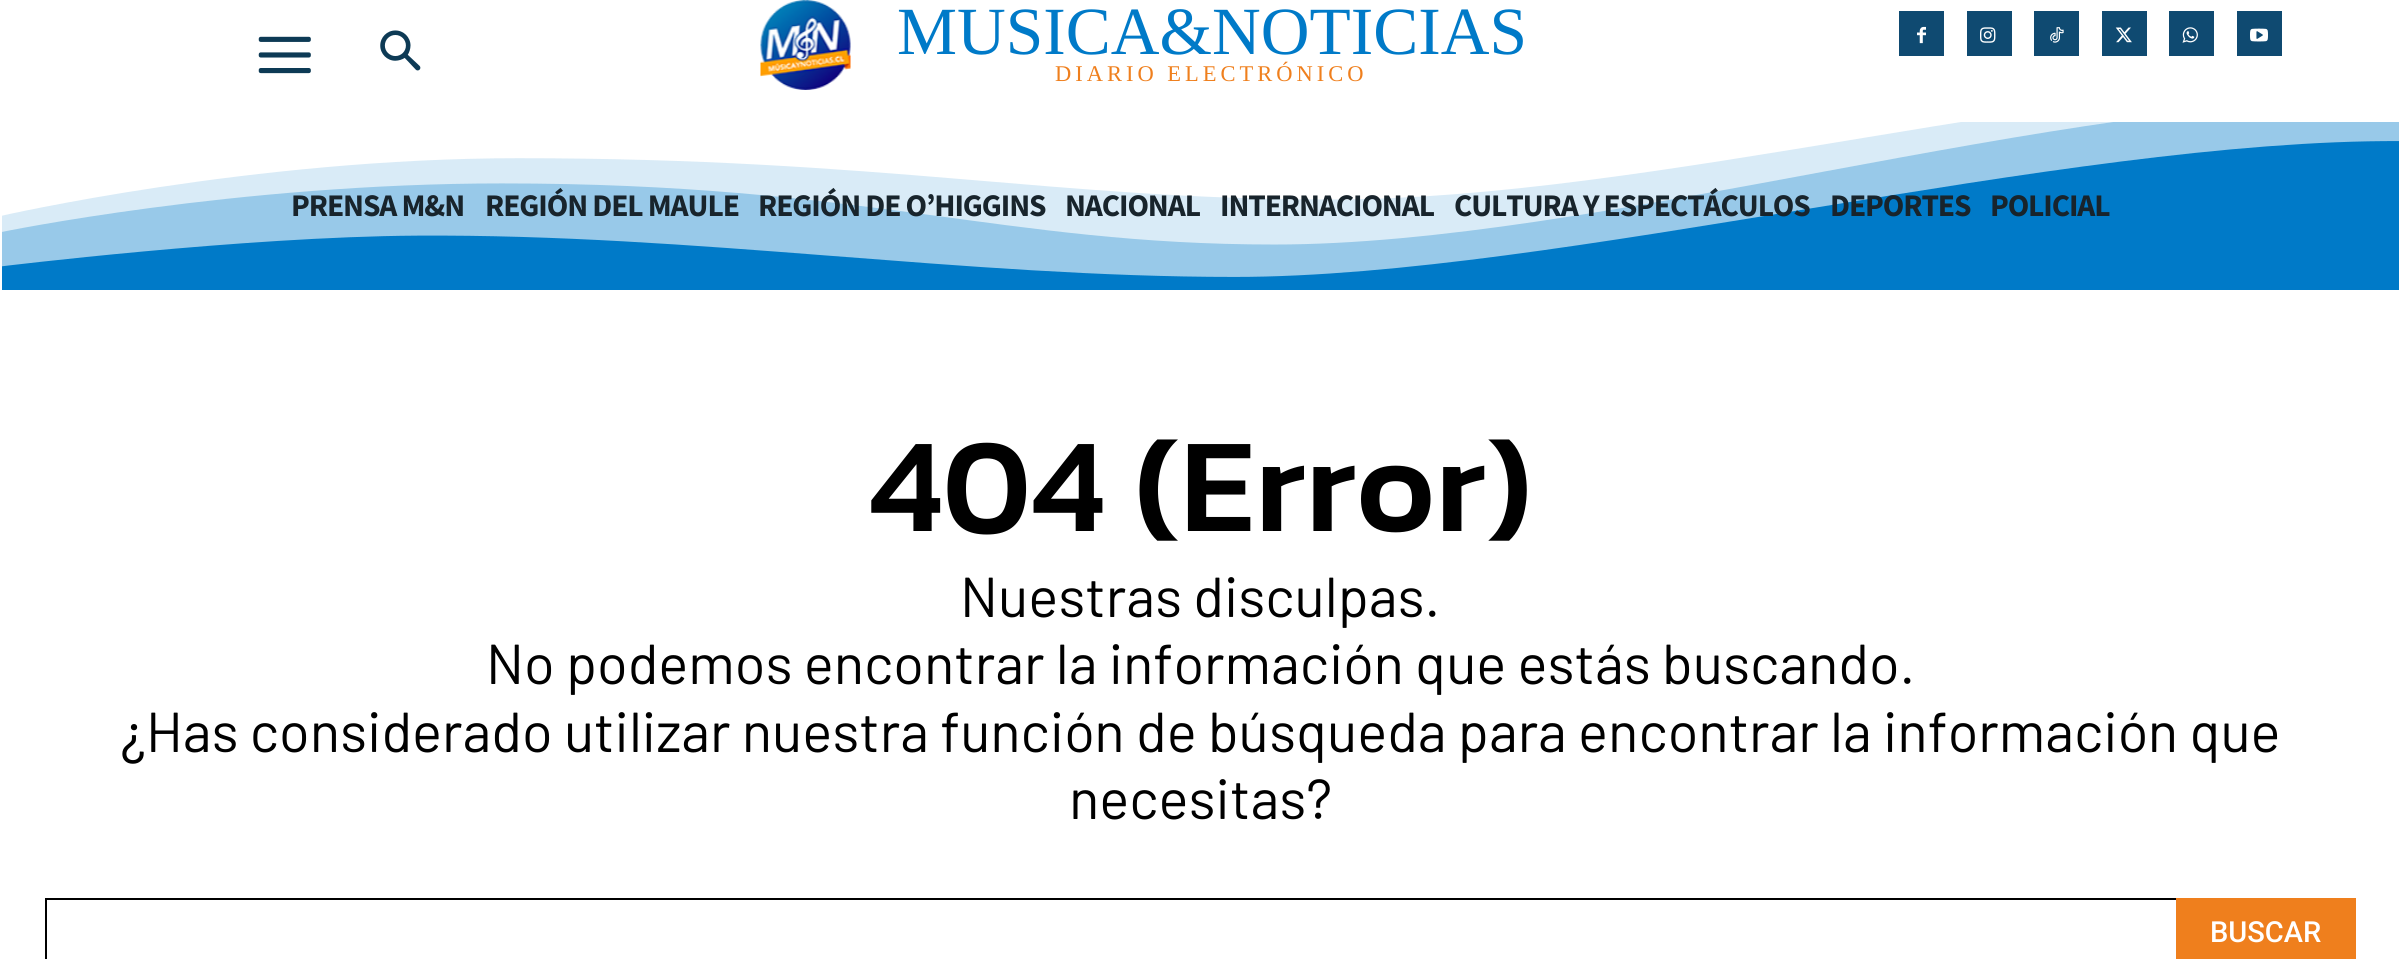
import math
import cairocffi as cairo

surface = cairo.ImageSurface(cairo.FORMAT_RGB24, 2399, 959)
cr = cairo.Context(surface)
options = cairo.FontOptions()
options.set_hint_metrics(cairo.HINT_METRICS_OFF)
options.set_hint_style(cairo.HINT_STYLE_NONE)
cr.set_font_options(options)
cr.set_miter_limit(4)


def use_color(code):
    cr.set_source_rgb(*(v / 255 for v in bytes.fromhex(code[-6:])))


def spaced_text(x, y, s, letter, word):
    cr.move_to(x, y)
    for ch in s:
        cr.show_text(ch)
        cr.rel_move_to(letter + word * (ch == ' '), 0)


def picture(path, x, y, w, h):
    cr.save()
    cr.set_source_surface(cairo.ImageSurface.create_from_png(path), x, y)
    cr.rectangle(x, y, w, h)
    cr.fill()
    cr.restore()


use_color("#ffffff")
cr.paint()
picture("img1.png", 258, 36, 53, 38)
picture("img2.png", 380, 30, 41, 41)
picture("img3.png", 760, 0, 91, 90)
cr.select_font_face("Liberation Serif")
cr.set_font_size(67.5)
use_color("#007ac8")
cr.move_to(897, 54)
cr.show_text("MUSICA&NOTICIAS")
cr.set_font_size(22.5)
use_color("#ef7f1d")
spaced_text(1055, 81, "DIARIO ELECTRÓNICO", 4, 0)
use_color("#0f4a71")
cr.rectangle(1899, 11, 45, 45)
cr.fill()
picture("img4.png", 1917, 26, 9, 18)
cr.rectangle(1967, 11, 45, 45)
cr.fill()
picture("img5.png", 1980, 27, 16, 16)
cr.rectangle(2034, 11, 45, 45)
cr.fill()
picture("img6.png", 2050, 27, 14, 16)
cr.rectangle(2102, 11, 45, 45)
cr.fill()
picture("img7.png", 2115, 27, 17, 16)
cr.rectangle(2169, 11, 45, 45)
cr.fill()
picture("img8.png", 2182, 27, 16, 16)
cr.rectangle(2237, 11, 45, 45)
cr.fill()
picture("img9.png", 2250, 28, 18, 14)
picture("img10.png", 2, 122, 2397, 168)
cr.select_font_face("Source Sans Pro", cairo.FONT_SLANT_NORMAL, cairo.FONT_WEIGHT_BOLD)
cr.set_font_size(31.5)
use_color("#18242c")
spaced_text(291, 216, "PRENSA M&N", -1.1, 0)
spaced_text(485, 216, "REGIÓN DEL MAULE", -1.1, 0)
spaced_text(758, 216, "REGIÓN DE O’HIGGINS", -1.1, 0)
spaced_text(1065, 216, "NACIONAL", -1.1, 0)
spaced_text(1220, 216, "INTERNACIONAL", -1.1, 0)
spaced_text(1454, 216, "CULTURA Y ESPECTÁCULOS", -1.1, 0)
spaced_text(1830, 216, "DEPORTES", -1.1, 0)
spaced_text(1990, 216, "POLICIAL", -1.1, 0)
cr.select_font_face("Kanit Medium")
cr.set_font_size(135)
use_color("#000000")
cr.move_to(869, 531)
cr.show_text("404 (Error)")
cr.select_font_face("Barlow")
cr.set_font_size(56.25)
cr.move_to(960, 617)
cr.show_text("Nuestras disculpas.")
cr.move_to(486, 684)
cr.show_text("No podemos encontrar la información que estás buscando.")
cr.move_to(120, 752)
cr.show_text("¿Has considerado utilizar nuestra función de búsqueda para encontrar la información que")
cr.move_to(1069, 819)
cr.show_text("necesitas?")
cr.rectangle(46, 899, 2309, 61)
cr.stroke()
use_color("#ef7f1d")
cr.rectangle(2176, 898, 180, 61)
cr.fill()
cr.select_font_face("Roboto Medium")
cr.set_font_size(29)
use_color("#ffffff")
cr.move_to(2210, 942)
cr.show_text("BUSCAR")
surface.write_to_png("result.png")
